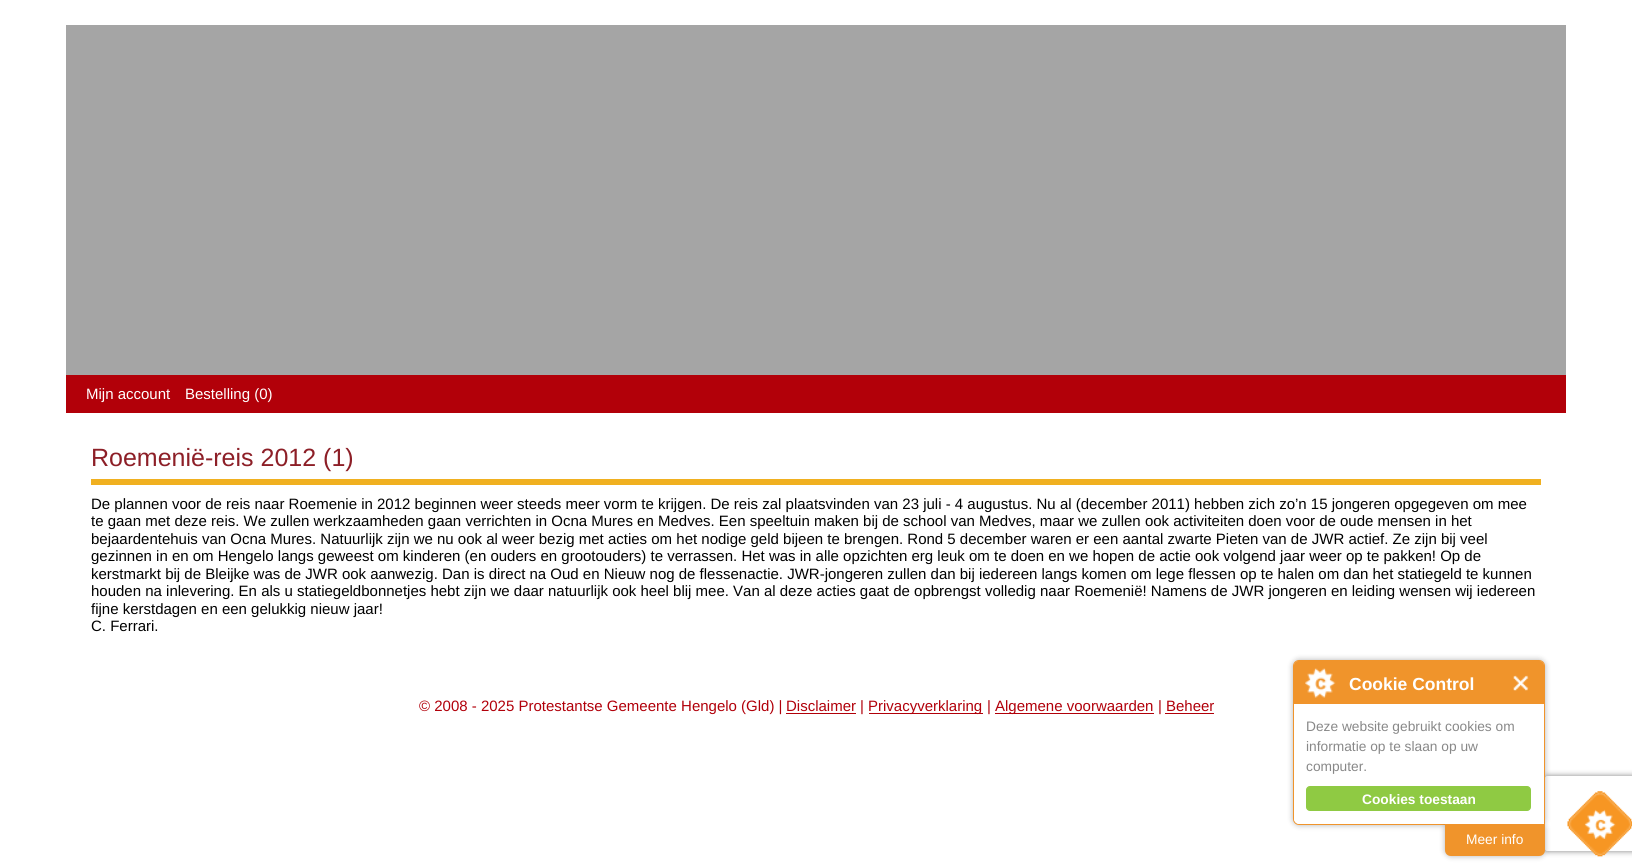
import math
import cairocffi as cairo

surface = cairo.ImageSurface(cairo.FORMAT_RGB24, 1632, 868)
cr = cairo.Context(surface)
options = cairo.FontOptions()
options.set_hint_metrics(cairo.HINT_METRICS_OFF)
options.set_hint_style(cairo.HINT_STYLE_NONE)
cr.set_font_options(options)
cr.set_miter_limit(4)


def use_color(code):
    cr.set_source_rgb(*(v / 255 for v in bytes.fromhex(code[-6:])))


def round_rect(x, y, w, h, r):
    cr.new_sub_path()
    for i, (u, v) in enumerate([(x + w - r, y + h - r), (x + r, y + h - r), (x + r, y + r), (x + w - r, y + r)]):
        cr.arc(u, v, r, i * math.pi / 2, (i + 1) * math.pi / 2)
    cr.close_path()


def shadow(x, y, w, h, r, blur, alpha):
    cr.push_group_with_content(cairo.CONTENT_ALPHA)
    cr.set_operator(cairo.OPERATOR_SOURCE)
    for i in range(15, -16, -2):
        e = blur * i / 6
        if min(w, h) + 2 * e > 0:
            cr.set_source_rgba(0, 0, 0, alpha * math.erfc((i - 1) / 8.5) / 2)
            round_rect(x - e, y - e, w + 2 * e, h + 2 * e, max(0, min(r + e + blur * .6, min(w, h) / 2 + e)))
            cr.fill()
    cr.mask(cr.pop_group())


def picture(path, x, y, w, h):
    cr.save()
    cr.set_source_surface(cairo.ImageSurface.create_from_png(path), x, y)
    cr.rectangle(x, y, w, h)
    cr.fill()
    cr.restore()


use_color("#ffffff")
cr.paint()
use_color("#a5a5a5")
cr.rectangle(66, 25, 1500, 350)
cr.fill()
use_color("#b20009")
cr.rectangle(66, 375, 1500, 38)
cr.fill()
cr.select_font_face("Liberation Sans")
cr.set_font_size(15)
use_color("#ffffff")
cr.move_to(86, 399)
cr.show_text("Mijn account")
cr.move_to(185, 399)
cr.show_text("Bestelling (0)")
use_color("#f0b020")
cr.rectangle(91, 479, 1450, 6)
cr.fill()
cr.set_font_size(25)
use_color("#8d1f27")
cr.move_to(91, 466)
cr.show_text("Roemenië-reis 2012 (1)")
cr.set_font_size(15)
use_color("#000000")
cr.move_to(91, 509)
cr.show_text("De plannen voor de reis naar Roemenie in 2012 beginnen weer steeds meer vorm te krijgen. De reis zal plaatsvinden van 23 juli - 4 augustus. Nu al (december 2011) hebben zich zo’n 15 jongeren opgegeven om mee")
cr.move_to(91, 526)
cr.show_text("te gaan met deze reis. We zullen werkzaamheden gaan verrichten in Ocna Mures en Medves. Een speeltuin maken bij de school van Medves, maar we zullen ook activiteiten doen voor de oude mensen in het")
cr.move_to(91, 544)
cr.show_text("bejaardentehuis van Ocna Mures. Natuurlijk zijn we nu ook al weer bezig met acties om het nodige geld bijeen te brengen. Rond 5 december waren er een aantal zwarte Pieten van de JWR actief. Ze zijn bij veel")
cr.move_to(91, 561)
cr.show_text("gezinnen in en om Hengelo langs geweest om kinderen (en ouders en grootouders) te verrassen. Het was in alle opzichten erg leuk om te doen en we hopen de actie ook volgend jaar weer op te pakken! Op de")
cr.move_to(91, 579)
cr.show_text("kerstmarkt bij de Bleijke was de JWR ook aanwezig. Dan is direct na Oud en Nieuw nog de flessenactie. JWR-jongeren zullen dan bij iedereen langs komen om lege flessen op te halen om dan het statiegeld te kunnen")
cr.move_to(91, 596)
cr.show_text("houden na inlevering. En als u statiegeldbonnetjes hebt zijn we daar natuurlijk ook heel blij mee. Van al deze acties gaat de opbrengst volledig naar Roemenië! Namens de JWR jongeren en leiding wensen wij iedereen")
cr.move_to(91, 614)
cr.show_text("fijne kerstdagen en een gelukkig nieuw jaar!")
cr.move_to(91, 631)
cr.show_text("C. Ferrari.")
use_color("#b1000a")
cr.move_to(419, 711)
cr.show_text("© 2008 - 2025 Protestantse Gemeente Hengelo (Gld) |")
cr.move_to(786, 711)
cr.show_text("Disclaimer")
use_color("#b10009")
cr.rectangle(786, 713, 70, 1)
cr.fill()
use_color("#b1000a")
cr.move_to(860, 711)
cr.show_text("|")
use_color("#b10009")
cr.rectangle(869, 713, 114, 1)
cr.fill()
use_color("#b1000a")
cr.move_to(868, 711)
cr.show_text("Privacyverklaring")
cr.move_to(987, 711)
cr.show_text("|")
use_color("#b10009")
cr.rectangle(995, 713, 159, 1)
cr.fill()
use_color("#b1000a")
cr.move_to(995, 711)
cr.show_text("Algemene voorwaarden")
cr.move_to(1158, 711)
cr.show_text("|")
cr.move_to(1166, 711)
cr.show_text("Beheer")
use_color("#b10009")
cr.rectangle(1165, 713, 49, 1)
cr.fill()
use_color("#000000")
shadow(1293, 660, 252, 165, 6, 3, 0.3)
cr.save()
cr.set_fill_rule(cairo.FILL_RULE_EVEN_ODD)
cr.new_path()
cr.move_to(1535, 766)
cr.line_to(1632, 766)
cr.line_to(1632, 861)
cr.line_to(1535, 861)
cr.close_path()
cr.move_to(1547.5, 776)
cr.line_to(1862.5, 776)
cr.curve_to(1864, 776, 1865, 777, 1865, 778.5)
cr.line_to(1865, 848.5)
cr.curve_to(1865, 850, 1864, 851, 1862.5, 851)
cr.line_to(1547.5, 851)
cr.curve_to(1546, 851, 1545, 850, 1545, 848.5)
cr.line_to(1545, 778.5)
cr.curve_to(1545, 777, 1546, 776, 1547.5, 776)
cr.close_path()
cr.clip()
use_color("#808080")
shadow(1545, 776, 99, 75, 2.5, 3, 1)
cr.restore()
use_color("#ffffff")
cr.new_path()
cr.move_to(1299, 660.5)
cr.line_to(1539, 660.5)
cr.curve_to(1542, 660.5, 1544.5, 663, 1544.5, 666)
cr.line_to(1544.5, 824.5)
cr.line_to(1299, 824.5)
cr.curve_to(1296, 824.5, 1293.5, 822, 1293.5, 819)
cr.line_to(1293.5, 666)
cr.curve_to(1293.5, 663, 1296, 660.5, 1299, 660.5)
cr.close_path()
cr.fill_preserve()
use_color("#f0942b")
cr.set_line_width(1)
cr.stroke()
use_color("#000000")
shadow(1445, 823, 100, 33, 6, 3, 0.3)
use_color("#f0942b")
cr.new_path()
cr.move_to(1445, 823)
cr.line_to(1545, 823)
cr.line_to(1545, 850)
cr.curve_to(1545, 853.5, 1542.5, 856, 1539, 856)
cr.line_to(1451, 856)
cr.curve_to(1447.5, 856, 1445, 853.5, 1445, 850)
cr.close_path()
cr.fill()
use_color("#ffffff")
cr.new_path()
cr.move_to(1300, 661)
cr.line_to(1538, 661)
cr.curve_to(1541.5, 661, 1544, 663.5, 1544, 667)
cr.line_to(1544, 824)
cr.line_to(1300, 824)
cr.curve_to(1296.5, 824, 1294, 821.5, 1294, 818)
cr.line_to(1294, 667)
cr.curve_to(1294, 663.5, 1296.5, 661, 1300, 661)
cr.close_path()
cr.fill()
use_color("#f0942b")
cr.new_path()
cr.move_to(1298, 661)
cr.line_to(1540, 661)
cr.curve_to(1542, 661, 1544, 663, 1544, 665)
cr.line_to(1544, 704)
cr.line_to(1294, 704)
cr.line_to(1294, 665)
cr.curve_to(1294, 663, 1296, 661, 1298, 661)
cr.close_path()
cr.fill()
picture("img1.png", 1305, 668, 31, 30)
cr.select_font_face("Liberation Sans", cairo.FONT_SLANT_NORMAL, cairo.FONT_WEIGHT_BOLD)
cr.set_font_size(17.5)
use_color("#ffffff")
cr.move_to(1349, 690)
cr.show_text("Cookie Control")
picture("img2.png", 1513, 675, 16, 16)
cr.select_font_face("Liberation Sans")
cr.set_font_size(13.75)
use_color("#888888")
cr.move_to(1306, 731)
cr.show_text("Deze website gebruikt cookies om")
cr.move_to(1306, 751)
cr.show_text("informatie op te slaan op uw")
cr.move_to(1306, 771)
cr.show_text("computer.")
use_color("#8fca43")
round_rect(1306.5, 786.5, 224, 24, 3.5)
cr.fill_preserve()
cr.stroke()
cr.select_font_face("Liberation Sans", cairo.FONT_SLANT_NORMAL, cairo.FONT_WEIGHT_BOLD)
use_color("#ffffff")
cr.move_to(1362, 804)
cr.show_text("Cookies toestaan")
cr.select_font_face("Liberation Sans")
cr.move_to(1466, 844)
cr.show_text("Meer info")
picture("img3.png", 1567, 791, 65, 66)
surface.write_to_png("result.png")
